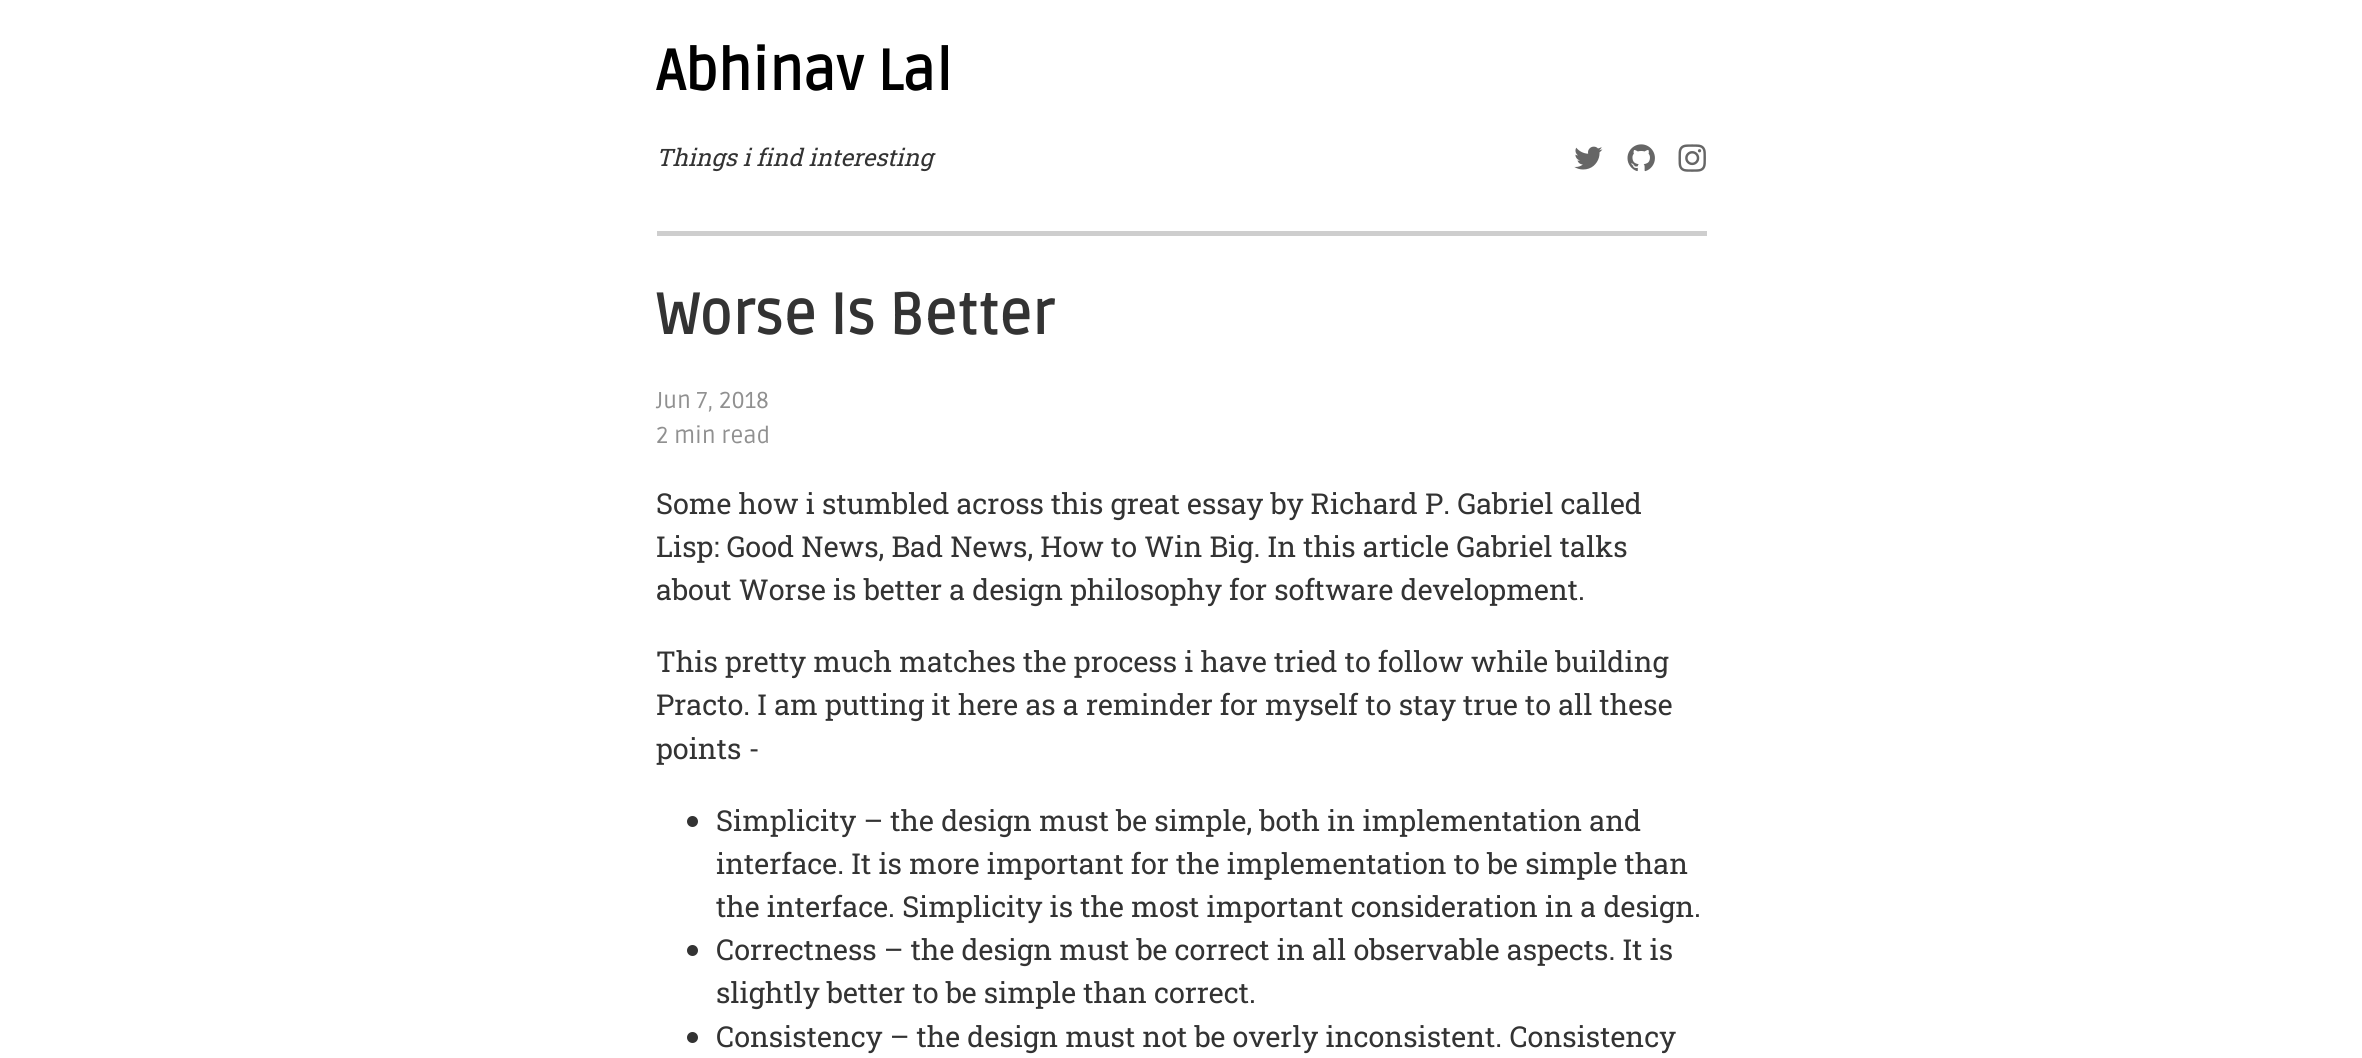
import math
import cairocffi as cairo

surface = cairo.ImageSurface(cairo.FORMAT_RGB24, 2362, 1058)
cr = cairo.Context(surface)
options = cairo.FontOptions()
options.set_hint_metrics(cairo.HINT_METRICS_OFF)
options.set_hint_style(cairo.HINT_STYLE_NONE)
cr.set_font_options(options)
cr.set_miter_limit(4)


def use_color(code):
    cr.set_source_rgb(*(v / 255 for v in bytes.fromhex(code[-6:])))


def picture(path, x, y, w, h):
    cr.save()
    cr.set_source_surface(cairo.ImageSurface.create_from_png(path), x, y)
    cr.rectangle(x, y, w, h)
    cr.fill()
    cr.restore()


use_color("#ffffff")
cr.paint()
cr.select_font_face("Ruda", cairo.FONT_SLANT_NORMAL, cairo.FONT_WEIGHT_BOLD)
cr.set_font_size(57.5)
use_color("#000000")
cr.move_to(656, 90)
cr.show_text("Abhinav Lal")
cr.select_font_face("Roboto Slab", cairo.FONT_SLANT_ITALIC)
cr.set_font_size(24)
use_color("#333333")
cr.move_to(656, 166)
cr.show_text("Things i find interesting")
picture("img1.png", 1574, 146, 29, 24)
picture("img2.png", 1627, 144, 28, 28)
picture("img3.png", 1678, 144, 28, 28)
use_color("#cecece")
cr.rectangle(657, 231, 1050, 5)
cr.fill()
cr.select_font_face("Ruda", cairo.FONT_SLANT_NORMAL, cairo.FONT_WEIGHT_BOLD)
cr.set_font_size(57.5)
use_color("#333333")
cr.move_to(656, 334)
cr.show_text("Worse Is Better")
cr.select_font_face("Ruda")
cr.set_font_size(23)
use_color("#909090")
cr.move_to(656, 408)
cr.show_text("Jun 7, 2018")
cr.move_to(656, 443)
cr.show_text("2 min read")
cr.select_font_face("Roboto Slab")
cr.set_font_size(28.8)
use_color("#333333")
cr.move_to(656, 514)
cr.show_text("Some how i stumbled across this great essay by Richard P. Gabriel called")
cr.move_to(656, 557)
cr.show_text("Lisp: Good News, Bad News, How to Win Big. In this article Gabriel talks")
cr.move_to(656, 600)
cr.show_text("about Worse is better a design philosophy for software development.")
cr.move_to(656, 672)
cr.show_text("This pretty much matches the process i have tried to follow while building")
cr.move_to(656, 715)
cr.show_text("Practo. I am putting it here as a reminder for myself to stay true to all these")
cr.move_to(656, 759)
cr.show_text("points -")
cr.new_path()
cr.arc(692.5, 821.5, 5.5, 0, 2 * math.pi)
cr.fill()
cr.move_to(716, 831)
cr.show_text("Simplicity – the design must be simple, both in implementation and")
cr.move_to(716, 874)
cr.show_text("interface. It is more important for the implementation to be simple than")
cr.move_to(716, 917)
cr.show_text("the interface. Simplicity is the most important consideration in a design.")
cr.new_path()
cr.arc(692.5, 950.5, 5.5, 0, 2 * math.pi)
cr.fill()
cr.move_to(716, 960)
cr.show_text("Correctness – the design must be correct in all observable aspects. It is")
cr.move_to(716, 1003)
cr.show_text("slightly better to be simple than correct.")
cr.new_path()
cr.arc(692.5, 1037.5, 5.5, 0, 2 * math.pi)
cr.fill()
cr.move_to(716, 1047)
cr.show_text("Consistency – the design must not be overly inconsistent. Consistency")
surface.write_to_png("result.png")
